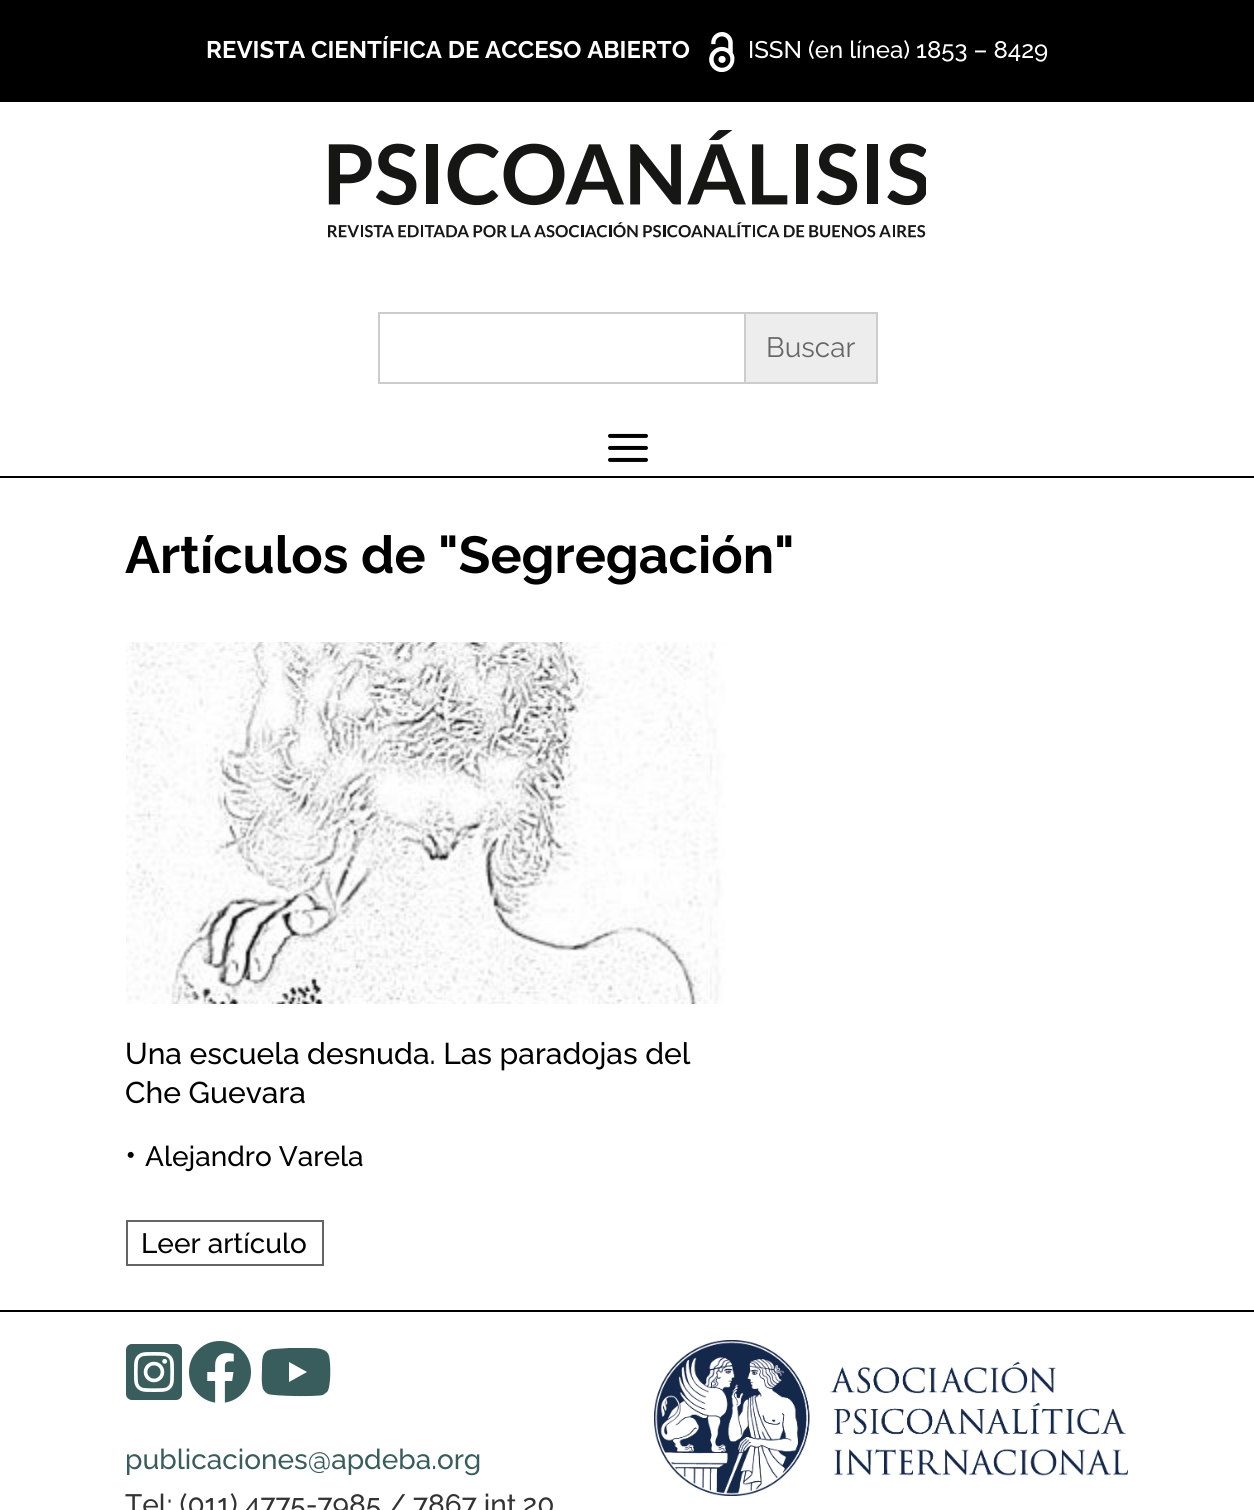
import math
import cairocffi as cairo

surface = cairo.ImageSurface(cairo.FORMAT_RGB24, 1254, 1510)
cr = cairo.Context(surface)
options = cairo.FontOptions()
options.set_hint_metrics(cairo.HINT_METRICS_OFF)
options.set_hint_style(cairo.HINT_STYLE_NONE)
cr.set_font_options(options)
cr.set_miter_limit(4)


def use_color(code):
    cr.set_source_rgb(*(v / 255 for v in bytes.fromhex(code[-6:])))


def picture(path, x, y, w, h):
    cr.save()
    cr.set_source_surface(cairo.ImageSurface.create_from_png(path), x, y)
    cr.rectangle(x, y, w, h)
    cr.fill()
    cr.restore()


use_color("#ffffff")
cr.paint()
use_color("#000000")
cr.rectangle(0, 0, 1254, 102)
cr.fill()
cr.select_font_face("Raleway Thin")
cr.set_font_size(24)
use_color("#ffffff")
cr.move_to(206, 58)
cr.show_text("REVISTA CIENTÍFICA DE ACCESO ABIERTO")
picture("img1.png", 709, 32, 26, 40)
cr.select_font_face("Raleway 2 Thin")
cr.move_to(748, 58)
cr.show_text("ISSN (en línea) 1853 – 8429")
use_color("#000000")
cr.rectangle(0, 476, 1254, 2)
cr.fill()
picture("img2.png", 328, 130, 598, 108)
cr.rectangle(379, 313, 498, 70)
use_color("#cccccc")
cr.stroke()
use_color("#ededed")
cr.rectangle(745, 313, 132, 70)
cr.fill_preserve()
use_color("#cccccc")
cr.stroke()
cr.select_font_face("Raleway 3 Thin")
cr.set_font_size(28)
use_color("#666666")
cr.move_to(766, 357)
cr.show_text("Buscar")
picture("img3.png", 608, 433, 40, 29)
cr.select_font_face("Raleway Thin")
cr.set_font_size(52)
use_color("#000000")
cr.move_to(125, 573)
cr.show_text("Artículos de \"Segregación\"")
picture("img4.png", 126, 642, 600, 362)
cr.select_font_face("Raleway 2 Thin")
cr.set_font_size(30)
cr.move_to(125, 1064)
cr.show_text("Una escuela desnuda. Las paradojas del")
cr.move_to(125, 1103)
cr.show_text("Che Guevara")
cr.set_font_size(32)
cr.move_to(125, 1166)
cr.show_text("•")
cr.set_font_size(28)
cr.move_to(145, 1166)
cr.show_text("Alejandro Varela")
cr.rectangle(127, 1221, 196, 44)
use_color("#646464")
cr.stroke()
use_color("#000000")
cr.move_to(141, 1253)
cr.show_text("Leer artículo")
cr.rectangle(0, 1310, 1254, 2)
cr.fill()
picture("img5.png", 126, 1344, 56, 56)
picture("img6.png", 189, 1341, 62, 62)
use_color("#395d5d")
cr.new_path()
cr.move_to(329, 1356)
cr.curve_to(331, 1363, 331, 1388, 327, 1392)
cr.line_to(323, 1395)
cr.curve_to(314, 1397, 273, 1396, 268, 1394)
cr.curve_to(266, 1393, 264, 1391, 263, 1389)
cr.curve_to(261, 1382, 262, 1374, 262, 1367)
cr.curve_to(262, 1356, 263, 1350, 274, 1349)
cr.line_to(289, 1348)
cr.line_to(310, 1348)
cr.curve_to(316, 1348, 327, 1348, 329, 1356)
cr.close_path()
cr.move_to(289, 1382)
cr.line_to(307, 1372)
cr.line_to(289, 1362)
cr.close_path()
cr.fill()
cr.move_to(125, 1469)
cr.show_text("publicaciones@apdeba.org")
use_color("#333333")
cr.move_to(125, 1514)
cr.show_text("Tel: (011) 4775-7985 / 7867 int.20")
picture("img7.png", 654, 1340, 474, 156)
surface.write_to_png("result.png")
